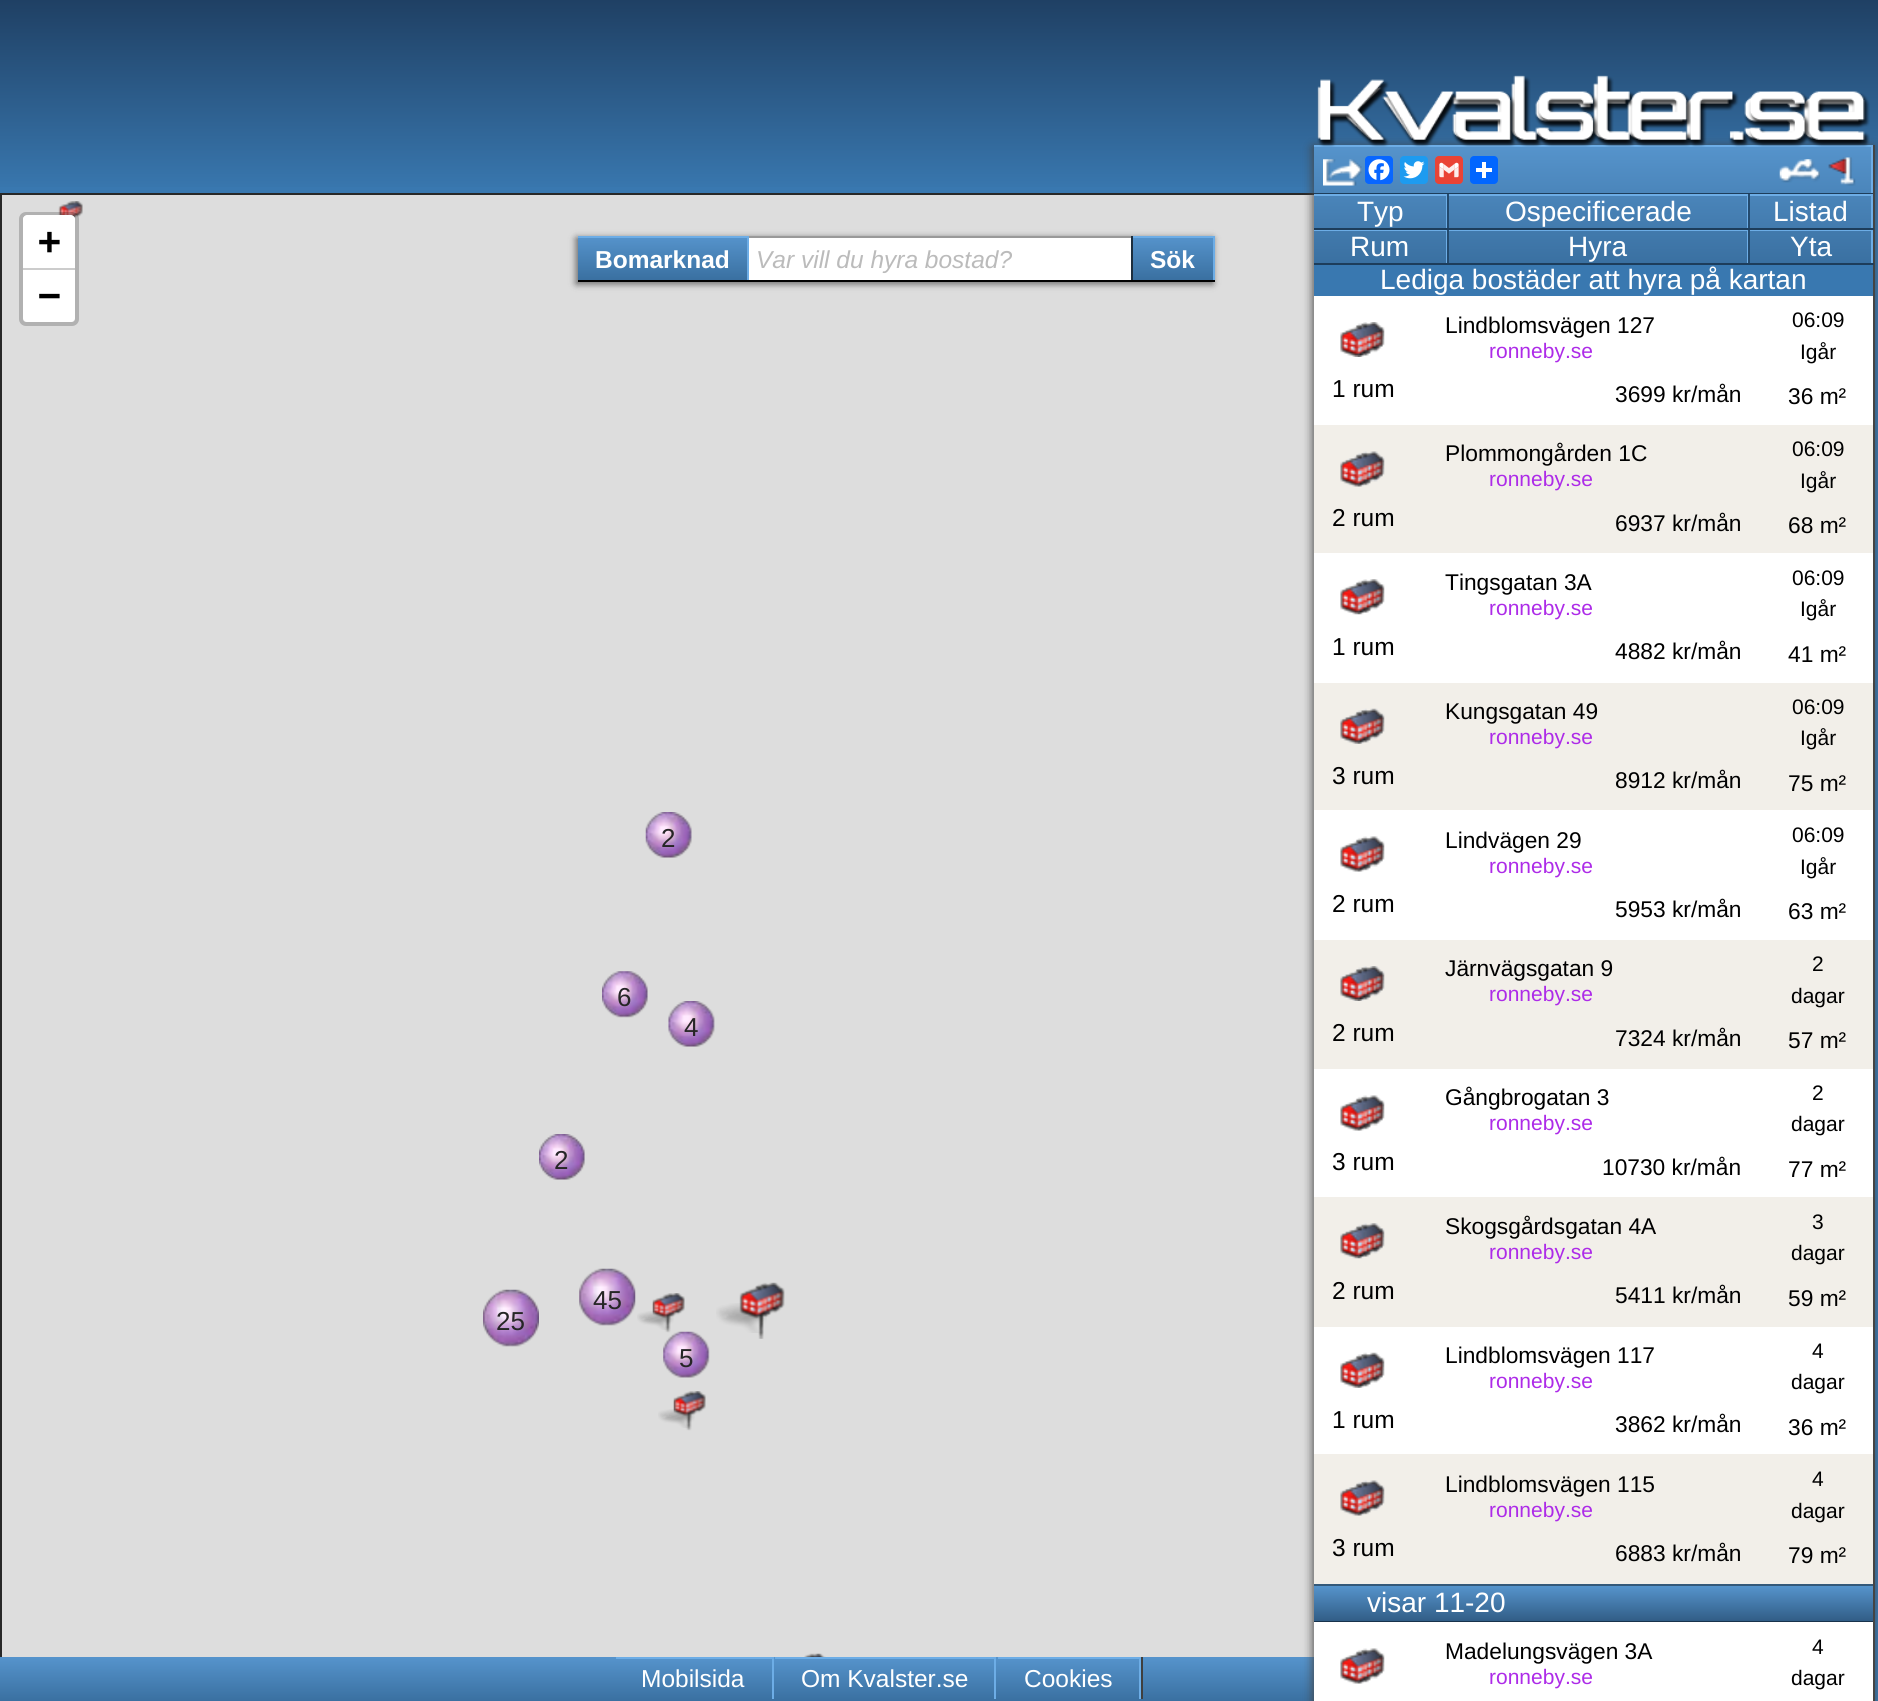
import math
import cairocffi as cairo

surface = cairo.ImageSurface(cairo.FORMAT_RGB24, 1878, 1701)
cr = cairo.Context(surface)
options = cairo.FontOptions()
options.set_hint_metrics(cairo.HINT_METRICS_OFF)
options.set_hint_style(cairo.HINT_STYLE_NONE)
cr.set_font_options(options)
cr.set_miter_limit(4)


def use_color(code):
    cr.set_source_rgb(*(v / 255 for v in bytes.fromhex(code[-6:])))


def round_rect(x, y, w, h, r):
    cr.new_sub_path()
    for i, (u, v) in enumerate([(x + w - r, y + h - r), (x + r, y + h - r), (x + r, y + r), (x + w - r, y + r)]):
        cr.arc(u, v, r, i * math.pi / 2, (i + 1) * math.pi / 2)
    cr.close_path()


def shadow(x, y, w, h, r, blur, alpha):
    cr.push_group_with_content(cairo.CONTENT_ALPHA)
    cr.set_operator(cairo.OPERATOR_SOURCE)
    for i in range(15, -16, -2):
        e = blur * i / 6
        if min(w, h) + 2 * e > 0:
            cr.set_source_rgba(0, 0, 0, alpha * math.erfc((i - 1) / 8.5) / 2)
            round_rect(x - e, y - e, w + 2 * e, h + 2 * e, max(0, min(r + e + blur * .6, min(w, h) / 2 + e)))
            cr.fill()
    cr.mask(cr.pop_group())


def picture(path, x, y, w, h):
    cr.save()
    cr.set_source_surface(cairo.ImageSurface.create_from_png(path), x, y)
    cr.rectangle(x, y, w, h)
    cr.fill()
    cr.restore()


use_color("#3978b0")
cr.paint()
gradient = cairo.LinearGradient(940, 0, 940, 193)
gradient.add_color_stop_rgba(0, 0.122, 0.251, 0.392, 1)
gradient.add_color_stop_rgba(1, 0.224, 0.471, 0.69, 1)
cr.set_source(gradient)
cr.rectangle(0, 0, 1878, 187)
cr.fill()
use_color("#282828")
cr.rectangle(0, 193, 2, 1464)
cr.fill()
use_color("#dddddd")
cr.rectangle(2, 195, 1312, 1462)
cr.fill()
use_color("#282828")
cr.rectangle(2, 193, 1318, 2)
cr.fill()
picture("img1.png", 58, 201, 25, 18)
round_rect(21, 214, 56, 110, 5)
cr.set_source_rgba(0, 0, 0, 0.2)
cr.set_line_width(4)
cr.stroke()
use_color("#ffffff")
cr.new_path()
cr.move_to(27, 215)
cr.line_to(71, 215)
cr.curve_to(73, 215, 75, 217, 75, 219)
cr.line_to(75, 270)
cr.line_to(23, 270)
cr.line_to(23, 219)
cr.curve_to(23, 217, 25, 215, 27, 215)
cr.close_path()
cr.fill()
use_color("#cccccc")
cr.rectangle(23, 268, 52, 2)
cr.fill()
cr.select_font_face("DejaVu Sans Mono", cairo.FONT_SLANT_NORMAL, cairo.FONT_WEIGHT_BOLD)
cr.set_font_size(38)
use_color("#000000")
cr.move_to(38, 254)
cr.show_text("+")
use_color("#ffffff")
cr.new_path()
cr.move_to(23, 270)
cr.line_to(75, 270)
cr.line_to(75, 318)
cr.curve_to(75, 320, 73, 322, 71, 322)
cr.line_to(27, 322)
cr.curve_to(25, 322, 23, 320, 23, 318)
cr.close_path()
cr.fill()
use_color("#000000")
cr.move_to(38, 308)
cr.show_text("−")
picture("img2.png", 645, 812, 47, 46)
cr.select_font_face("Liberation Sans")
cr.set_font_size(26)
use_color("#262626")
cr.move_to(661, 847)
cr.show_text("2")
picture("img3.png", 602, 971, 46, 47)
cr.move_to(617, 1006)
cr.show_text("6")
picture("img4.png", 668, 1001, 47, 46)
cr.move_to(684, 1036)
cr.show_text("4")
picture("img5.png", 539, 1134, 46, 46)
cr.move_to(554, 1169)
cr.show_text("2")
picture("img6.png", 483, 1289, 56, 58)
cr.move_to(496, 1330)
cr.show_text("25")
picture("img7.png", 579, 1268, 57, 58)
cr.move_to(593, 1309)
cr.show_text("45")
picture("img12.png", 637, 1311, 37, 19)
picture("img8.png", 652, 1293, 33, 40)
picture("img13.png", 716, 1303, 51, 30)
picture("img9.png", 739, 1282, 46, 57)
picture("img10.png", 663, 1331, 47, 47)
cr.move_to(679, 1367)
cr.show_text("5")
picture("img12.png", 658, 1409, 37, 19)
picture("img8.png", 673, 1391, 33, 40)
picture("img11.png", 804, 1653, 22, 4)
use_color("#666666")
shadow(576, 238, 637, 46, 0, 3.5, 1)
gradient = cairo.LinearGradient(896, 236, 896, 280)
gradient.add_color_stop_rgba(0, 0.337, 0.58, 0.8, 1)
gradient.add_color_stop_rgba(1, 0.227, 0.439, 0.631, 1)
cr.set_source(gradient)
cr.rectangle(578, 238, 635, 42)
cr.fill()
use_color("#000000")
cr.rectangle(578, 280, 637, 2)
cr.fill()
use_color("#6dade6")
cr.rectangle(578, 236, 171, 2)
cr.fill()
cr.rectangle(747, 236, 2, 44)
cr.fill()
cr.select_font_face("Liberation Sans", cairo.FONT_SLANT_NORMAL, cairo.FONT_WEIGHT_BOLD)
cr.set_font_size(24.5)
use_color("#ffffff")
cr.move_to(595, 268)
cr.show_text("Bomarknad")
cr.rectangle(749, 238, 382, 42)
cr.fill()
use_color("#999999")
cr.rectangle(749, 236, 382, 2)
cr.fill()
cr.select_font_face("Liberation Sans", cairo.FONT_SLANT_ITALIC)
use_color("#bbbbbb")
cr.move_to(756, 268)
cr.show_text("Var vill du hyra bostad?")
use_color("#6dade6")
cr.rectangle(1131, 236, 84, 2)
cr.fill()
cr.rectangle(1213, 236, 2, 44)
cr.fill()
use_color("#1d2e3e")
cr.rectangle(1131, 236, 2, 44)
cr.fill()
cr.select_font_face("Liberation Sans", cairo.FONT_SLANT_NORMAL, cairo.FONT_WEIGHT_BOLD)
use_color("#ffffff")
cr.move_to(1150, 268)
cr.show_text("Sök")
gradient = cairo.LinearGradient(659, 1657, 659, 1701)
gradient.add_color_stop_rgba(0, 0.337, 0.58, 0.8, 1)
gradient.add_color_stop_rgba(1, 0.227, 0.439, 0.631, 1)
cr.set_source(gradient)
cr.rectangle(0, 1657, 1314, 44)
cr.fill()
use_color("#444444")
shadow(1313, 147, 560, 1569, 0, 5, 1)
use_color("#6dade6")
cr.rectangle(1314, 145, 559, 2)
cr.fill()
picture("img14.png", 1317, 75, 553, 72)
use_color("#ffffff")
cr.rectangle(1314, 296, 559, 1158)
cr.fill()
use_color("#444444")
cr.rectangle(1873, 145, 2, 1556)
cr.fill()
gradient = cairo.LinearGradient(1593, 145, 1593, 264)
gradient.add_color_stop_rgba(0, 0.337, 0.58, 0.8, 1)
gradient.add_color_stop_rgba(1, 0.227, 0.439, 0.631, 1)
cr.set_source(gradient)
cr.rectangle(1314, 147, 557, 116)
cr.fill()
use_color("#6dade6")
cr.rectangle(1871, 145, 2, 49)
cr.fill()
use_color("#1d3d5b")
cr.rectangle(1314, 193, 559, 1)
cr.fill()
picture("img15.png", 1323, 159, 39, 27)
use_color("#0866ff")
round_rect(1365, 156, 28, 28, 4)
cr.fill()
picture("img16.png", 1368, 159, 22, 22)
use_color("#1d9bf0")
round_rect(1400, 156, 28, 28, 4)
cr.fill()
picture("img17.png", 1403, 161, 22, 18)
use_color("#ea4335")
round_rect(1435, 156, 28, 28, 4)
cr.fill()
picture("img18.png", 1439, 162, 20, 16)
use_color("#0166ff")
round_rect(1470, 156, 28, 28, 4)
cr.fill()
use_color("#ffffff")
cr.rectangle(1482, 162, 4, 16)
cr.fill()
cr.rectangle(1476, 168, 16, 4)
cr.fill()
picture("img19.png", 1779, 159, 41, 24)
picture("img20.png", 1828, 157, 28, 29)
use_color("#1d3d5b")
cr.rectangle(1748, 263, 126, 2)
cr.fill()
use_color("#234a6e")
cr.rectangle(1748, 228, 2, 36)
cr.fill()
use_color("#6dade6")
cr.rectangle(1750, 230, 123, 1)
cr.fill()
cr.rectangle(1871, 229, 2, 34)
cr.fill()
use_color("#1d3d5b")
cr.rectangle(1748, 228, 126, 2)
cr.fill()
use_color("#234a6e")
cr.rectangle(1748, 194, 2, 35)
cr.fill()
use_color("#1d3d5b")
cr.rectangle(1447, 263, 303, 2)
cr.fill()
use_color("#234a6e")
cr.rectangle(1447, 228, 2, 36)
cr.fill()
use_color("#6dade6")
cr.rectangle(1449, 230, 299, 1)
cr.fill()
cr.rectangle(1747, 229, 1, 34)
cr.fill()
use_color("#1d3d5b")
cr.rectangle(1447, 228, 303, 2)
cr.fill()
use_color("#234a6e")
cr.rectangle(1447, 194, 2, 35)
cr.fill()
use_color("#6dade6")
cr.rectangle(1314, 230, 133, 1)
cr.fill()
cr.rectangle(1446, 229, 1, 34)
cr.fill()
use_color("#1d3d5b")
cr.rectangle(1314, 228, 135, 2)
cr.fill()
use_color("#6dade6")
cr.rectangle(1314, 194, 133, 2)
cr.fill()
cr.rectangle(1446, 194, 1, 34)
cr.fill()
cr.select_font_face("Liberation Sans")
cr.set_font_size(28)
use_color("#ffffff")
cr.move_to(1357, 221)
cr.show_text("Typ")
use_color("#6dade6")
cr.rectangle(1449, 194, 299, 2)
cr.fill()
cr.rectangle(1747, 194, 1, 34)
cr.fill()
use_color("#ffffff")
cr.move_to(1505, 221)
cr.show_text("Ospecificerade")
use_color("#6dade6")
cr.rectangle(1750, 194, 123, 2)
cr.fill()
cr.rectangle(1871, 194, 2, 34)
cr.fill()
use_color("#ffffff")
cr.move_to(1773, 221)
cr.show_text("Listad")
use_color("#1d3d5b")
cr.rectangle(1314, 263, 135, 2)
cr.fill()
use_color("#ffffff")
cr.move_to(1350, 256)
cr.show_text("Rum")
cr.move_to(1568, 256)
cr.show_text("Hyra")
cr.move_to(1790, 256)
cr.show_text("Yta")
use_color("#3978b0")
cr.rectangle(1314, 265, 559, 31)
cr.fill()
use_color("#ffffff")
cr.move_to(1380, 289)
cr.show_text("Lediga bostäder att hyra på kartan")
picture("img21.png", 1340, 322, 45, 35)
cr.set_font_size(24.5)
use_color("#000000")
cr.move_to(1332, 397)
cr.show_text("1 rum")
cr.set_font_size(22.75)
cr.move_to(1445, 333)
cr.show_text("Lindblomsvägen 127")
cr.set_font_size(21)
use_color("#ad2be8")
cr.move_to(1489, 358)
cr.show_text("ronneby.se")
cr.set_font_size(22.75)
use_color("#000000")
cr.move_to(1615, 402)
cr.show_text("3699 kr/mån")
cr.set_font_size(21)
cr.move_to(1792, 327)
cr.show_text("06:09")
cr.move_to(1800, 359)
cr.show_text("Igår")
cr.set_font_size(22.75)
cr.move_to(1788, 404)
cr.show_text("36 m²")
use_color("#f2efe9")
cr.rectangle(1314, 425, 559, 128)
cr.fill()
picture("img22.png", 1340, 451, 45, 36)
cr.set_font_size(24.5)
use_color("#000000")
cr.move_to(1332, 526)
cr.show_text("2 rum")
cr.set_font_size(22.75)
cr.move_to(1445, 461)
cr.show_text("Plommongården 1C")
cr.set_font_size(21)
use_color("#ad2be8")
cr.move_to(1489, 486)
cr.show_text("ronneby.se")
cr.set_font_size(22.75)
use_color("#000000")
cr.move_to(1615, 531)
cr.show_text("6937 kr/mån")
cr.set_font_size(21)
cr.move_to(1792, 456)
cr.show_text("06:09")
cr.move_to(1800, 488)
cr.show_text("Igår")
cr.set_font_size(22.75)
cr.move_to(1788, 533)
cr.show_text("68 m²")
picture("img23.png", 1340, 579, 45, 36)
cr.set_font_size(24.5)
cr.move_to(1332, 655)
cr.show_text("1 rum")
cr.set_font_size(22.75)
cr.move_to(1445, 590)
cr.show_text("Tingsgatan 3A")
cr.set_font_size(21)
use_color("#ad2be8")
cr.move_to(1489, 615)
cr.show_text("ronneby.se")
cr.set_font_size(22.75)
use_color("#000000")
cr.move_to(1615, 659)
cr.show_text("4882 kr/mån")
cr.set_font_size(21)
cr.move_to(1792, 585)
cr.show_text("06:09")
cr.move_to(1800, 616)
cr.show_text("Igår")
cr.set_font_size(22.75)
cr.move_to(1788, 662)
cr.show_text("41 m²")
use_color("#f2efe9")
cr.rectangle(1314, 683, 559, 127)
cr.fill()
picture("img24.png", 1340, 708, 45, 36)
cr.set_font_size(24.5)
use_color("#000000")
cr.move_to(1332, 784)
cr.show_text("3 rum")
cr.set_font_size(22.75)
cr.move_to(1445, 719)
cr.show_text("Kungsgatan 49")
cr.set_font_size(21)
use_color("#ad2be8")
cr.move_to(1489, 744)
cr.show_text("ronneby.se")
cr.set_font_size(22.75)
use_color("#000000")
cr.move_to(1615, 788)
cr.show_text("8912 kr/mån")
cr.set_font_size(21)
cr.move_to(1792, 714)
cr.show_text("06:09")
cr.move_to(1800, 745)
cr.show_text("Igår")
cr.set_font_size(22.75)
cr.move_to(1788, 791)
cr.show_text("75 m²")
picture("img25.png", 1340, 836, 45, 36)
cr.set_font_size(24.5)
cr.move_to(1332, 912)
cr.show_text("2 rum")
cr.set_font_size(22.75)
cr.move_to(1445, 848)
cr.show_text("Lindvägen 29")
cr.set_font_size(21)
use_color("#ad2be8")
cr.move_to(1489, 873)
cr.show_text("ronneby.se")
cr.set_font_size(22.75)
use_color("#000000")
cr.move_to(1615, 917)
cr.show_text("5953 kr/mån")
cr.set_font_size(21)
cr.move_to(1792, 842)
cr.show_text("06:09")
cr.move_to(1800, 874)
cr.show_text("Igår")
cr.set_font_size(22.75)
cr.move_to(1788, 919)
cr.show_text("63 m²")
use_color("#f2efe9")
cr.rectangle(1314, 940, 559, 129)
cr.fill()
picture("img26.png", 1340, 966, 45, 35)
cr.set_font_size(24.5)
use_color("#000000")
cr.move_to(1332, 1041)
cr.show_text("2 rum")
cr.set_font_size(22.75)
cr.move_to(1445, 976)
cr.show_text("Järnvägsgatan 9")
cr.set_font_size(21)
use_color("#ad2be8")
cr.move_to(1489, 1001)
cr.show_text("ronneby.se")
cr.set_font_size(22.75)
use_color("#000000")
cr.move_to(1615, 1046)
cr.show_text("7324 kr/mån")
cr.set_font_size(21)
cr.move_to(1812, 971)
cr.show_text("2")
cr.move_to(1791, 1003)
cr.show_text("dagar")
cr.set_font_size(22.75)
cr.move_to(1788, 1048)
cr.show_text("57 m²")
picture("img25.png", 1340, 1095, 45, 36)
cr.set_font_size(24.5)
cr.move_to(1332, 1170)
cr.show_text("3 rum")
cr.set_font_size(22.75)
cr.move_to(1445, 1105)
cr.show_text("Gångbrogatan 3")
cr.set_font_size(21)
use_color("#ad2be8")
cr.move_to(1489, 1130)
cr.show_text("ronneby.se")
cr.set_font_size(22.75)
use_color("#000000")
cr.move_to(1602, 1175)
cr.show_text("10730 kr/mån")
cr.set_font_size(21)
cr.move_to(1812, 1100)
cr.show_text("2")
cr.move_to(1791, 1131)
cr.show_text("dagar")
cr.set_font_size(22.75)
cr.move_to(1788, 1177)
cr.show_text("77 m²")
use_color("#f2efe9")
cr.rectangle(1314, 1197, 559, 130)
cr.fill()
picture("img27.png", 1340, 1223, 45, 36)
cr.set_font_size(24.5)
use_color("#000000")
cr.move_to(1332, 1299)
cr.show_text("2 rum")
cr.set_font_size(22.75)
cr.move_to(1445, 1234)
cr.show_text("Skogsgårdsgatan 4A")
cr.set_font_size(21)
use_color("#ad2be8")
cr.move_to(1489, 1259)
cr.show_text("ronneby.se")
cr.set_font_size(22.75)
use_color("#000000")
cr.move_to(1615, 1303)
cr.show_text("5411 kr/mån")
cr.set_font_size(21)
cr.move_to(1812, 1229)
cr.show_text("3")
cr.move_to(1791, 1260)
cr.show_text("dagar")
cr.set_font_size(22.75)
cr.move_to(1788, 1306)
cr.show_text("59 m²")
picture("img28.png", 1340, 1352, 45, 36)
cr.set_font_size(24.5)
cr.move_to(1332, 1428)
cr.show_text("1 rum")
cr.set_font_size(22.75)
cr.move_to(1445, 1363)
cr.show_text("Lindblomsvägen 117")
cr.set_font_size(21)
use_color("#ad2be8")
cr.move_to(1489, 1388)
cr.show_text("ronneby.se")
cr.set_font_size(22.75)
use_color("#000000")
cr.move_to(1615, 1432)
cr.show_text("3862 kr/mån")
cr.set_font_size(21)
cr.move_to(1812, 1358)
cr.show_text("4")
cr.move_to(1791, 1389)
cr.show_text("dagar")
cr.set_font_size(22.75)
cr.move_to(1788, 1435)
cr.show_text("36 m²")
use_color("#f2efe9")
cr.rectangle(1314, 1454, 559, 130)
cr.fill()
picture("img22.png", 1340, 1480, 45, 36)
cr.set_font_size(24.5)
use_color("#000000")
cr.move_to(1332, 1556)
cr.show_text("3 rum")
cr.set_font_size(22.75)
cr.move_to(1445, 1492)
cr.show_text("Lindblomsvägen 115")
cr.set_font_size(21)
use_color("#ad2be8")
cr.move_to(1489, 1517)
cr.show_text("ronneby.se")
cr.set_font_size(22.75)
use_color("#000000")
cr.move_to(1615, 1561)
cr.show_text("6883 kr/mån")
cr.set_font_size(21)
cr.move_to(1812, 1486)
cr.show_text("4")
cr.move_to(1791, 1518)
cr.show_text("dagar")
cr.set_font_size(22.75)
cr.move_to(1788, 1563)
cr.show_text("79 m²")
gradient = cairo.LinearGradient(1593, 1586, 1593, 1621)
gradient.add_color_stop_rgba(0, 0.337, 0.58, 0.8, 1)
gradient.add_color_stop_rgba(1, 0.192, 0.365, 0.525, 1)
cr.set_source(gradient)
cr.rectangle(1314, 1586, 559, 35)
cr.fill()
use_color("#345979")
cr.rectangle(1314, 1584, 559, 2)
cr.fill()
use_color("#18334c")
cr.rectangle(1314, 1621, 559, 1)
cr.fill()
cr.set_font_size(28)
use_color("#ffffff")
cr.move_to(1367, 1612)
cr.show_text("visar 11-20")
cr.rectangle(1314, 1622, 559, 79)
cr.fill()
picture("img25.png", 1340, 1648, 45, 36)
cr.set_font_size(22.75)
use_color("#000000")
cr.move_to(1445, 1659)
cr.show_text("Madelungsvägen 3A")
cr.set_font_size(21)
use_color("#ad2be8")
cr.move_to(1489, 1684)
cr.show_text("ronneby.se")
use_color("#000000")
cr.move_to(1812, 1654)
cr.show_text("4")
cr.move_to(1791, 1685)
cr.show_text("dagar")
use_color("#3f3f3f")
cr.rectangle(1141, 1657, 2, 42)
cr.fill()
use_color("#6dade6")
cr.rectangle(616, 1657, 158, 2)
cr.fill()
cr.rectangle(772, 1657, 2, 42)
cr.fill()
cr.set_font_size(24.5)
use_color("#ffffff")
cr.move_to(641, 1687)
cr.show_text("Mobilsida")
use_color("#6dade6")
cr.rectangle(775, 1657, 221, 2)
cr.fill()
cr.rectangle(994, 1657, 2, 42)
cr.fill()
use_color("#ffffff")
cr.move_to(801, 1687)
cr.show_text("Om Kvalster.se")
use_color("#6dade6")
cr.rectangle(998, 1657, 143, 2)
cr.fill()
cr.rectangle(1139, 1657, 2, 42)
cr.fill()
use_color("#ffffff")
cr.move_to(1024, 1687)
cr.show_text("Cookies")
surface.write_to_png("result.png")
